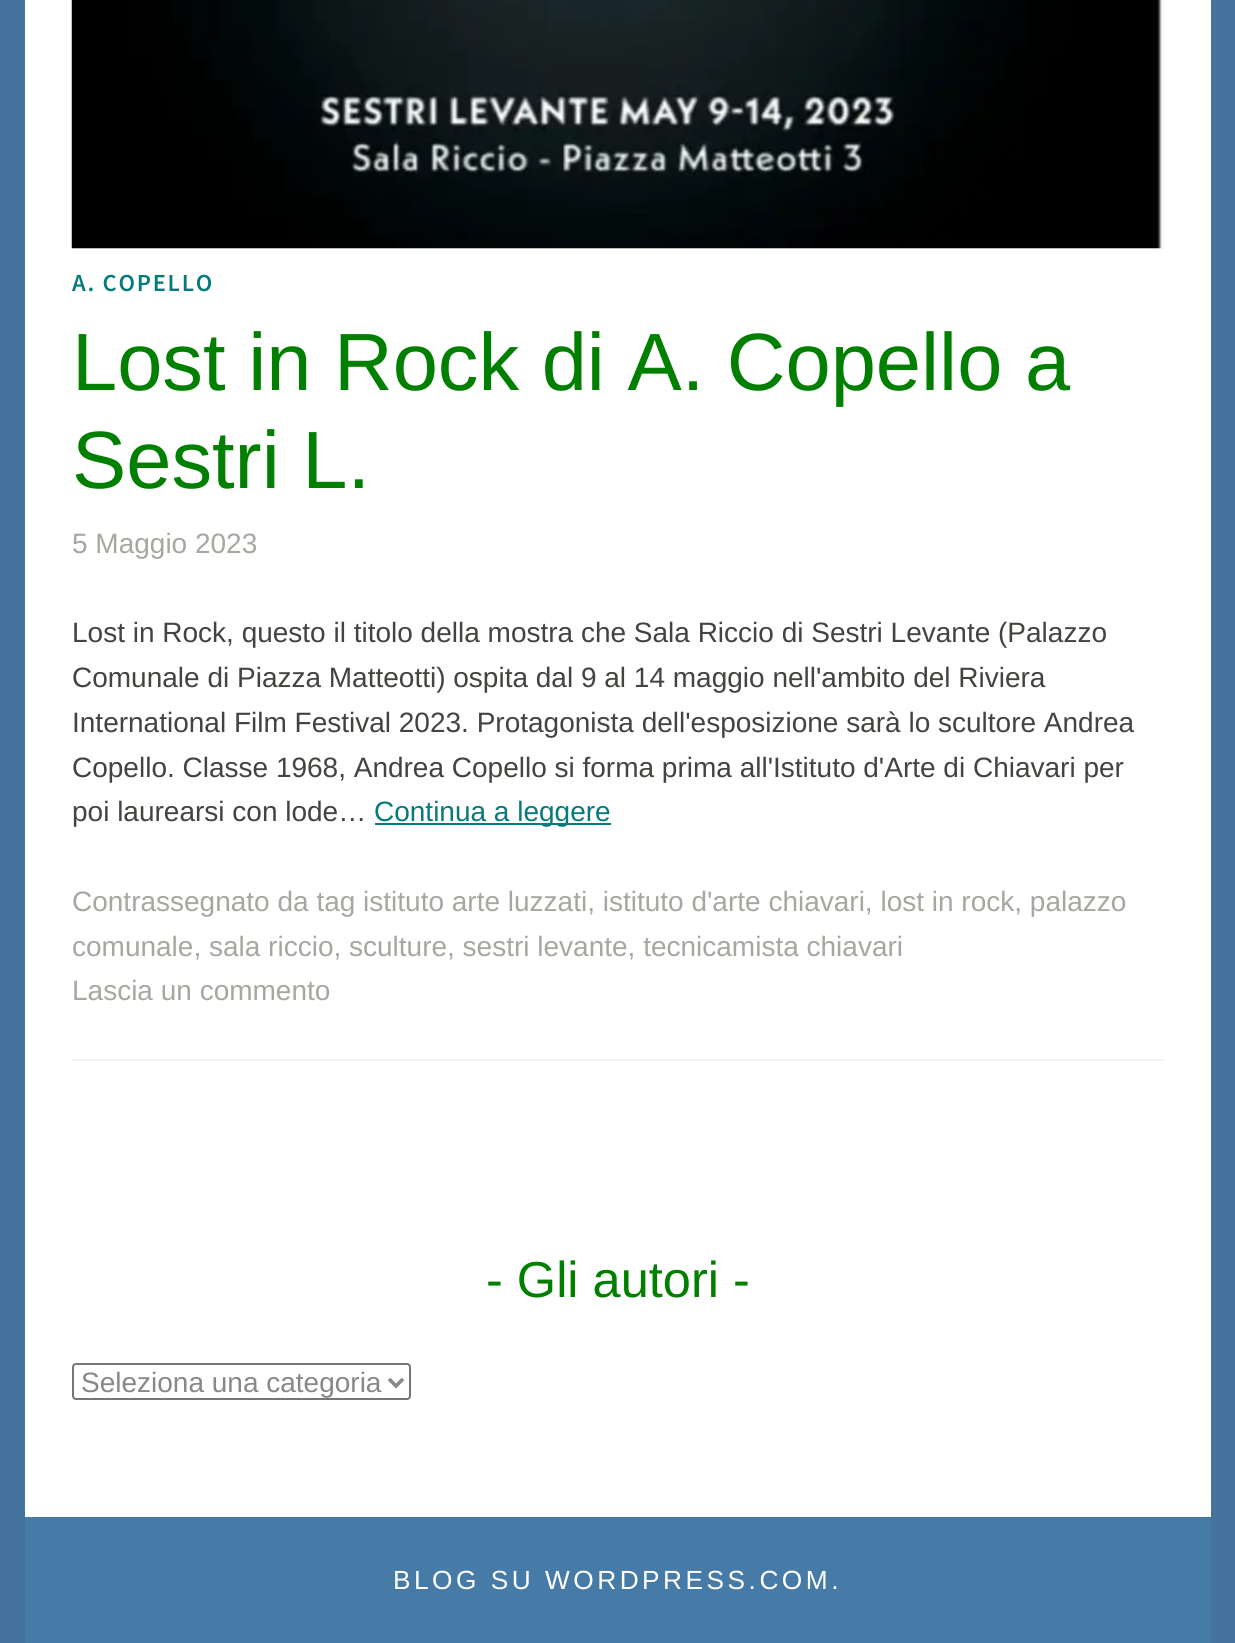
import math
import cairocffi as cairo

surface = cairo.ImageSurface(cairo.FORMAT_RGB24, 1235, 1643)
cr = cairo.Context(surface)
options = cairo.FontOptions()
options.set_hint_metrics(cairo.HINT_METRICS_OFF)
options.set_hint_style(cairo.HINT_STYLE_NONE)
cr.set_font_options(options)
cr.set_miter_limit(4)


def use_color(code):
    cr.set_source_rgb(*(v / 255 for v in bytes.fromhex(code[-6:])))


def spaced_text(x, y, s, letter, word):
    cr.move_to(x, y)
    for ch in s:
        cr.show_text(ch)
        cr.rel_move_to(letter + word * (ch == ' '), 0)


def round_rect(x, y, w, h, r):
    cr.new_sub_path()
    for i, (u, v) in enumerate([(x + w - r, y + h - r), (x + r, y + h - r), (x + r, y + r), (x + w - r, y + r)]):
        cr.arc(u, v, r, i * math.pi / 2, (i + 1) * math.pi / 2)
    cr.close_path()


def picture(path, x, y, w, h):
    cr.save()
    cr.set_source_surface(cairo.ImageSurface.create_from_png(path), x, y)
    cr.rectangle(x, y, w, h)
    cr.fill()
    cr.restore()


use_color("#44749d")
cr.paint()
use_color("#ffffff")
cr.rectangle(25, 0, 1186, 1517)
cr.fill()
use_color("#f8f9f8")
cr.rectangle(72, 0, 1092, 249)
cr.fill()
picture("img1.png", 71, 0, 1091, 249)
cr.select_font_face("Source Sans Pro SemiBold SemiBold")
cr.set_font_size(24.5)
use_color("#077a7c")
spaced_text(72, 291, "A. COPELLO", 1.75, 0)
cr.select_font_face("Arimo")
cr.set_font_size(81.25)
use_color("#007f00")
cr.move_to(72, 390)
cr.show_text("Lost in Rock di A. Copello a")
cr.move_to(72, 488)
cr.show_text("Sestri L.")
cr.set_font_size(28)
use_color("#a8a6a1")
cr.move_to(72, 553)
cr.show_text("5 Maggio 2023")
use_color("#444340")
cr.move_to(72, 642)
cr.show_text("Lost in Rock, questo il titolo della mostra che Sala Riccio di Sestri Levante (Palazzo")
cr.move_to(72, 687)
cr.show_text("Comunale di Piazza Matteotti) ospita dal 9 al 14 maggio nell'ambito del Riviera")
cr.move_to(72, 732)
cr.show_text("International Film Festival 2023. Protagonista dell'esposizione sarà lo scultore Andrea")
cr.move_to(72, 777)
cr.show_text("Copello. Classe 1968, Andrea Copello si forma prima all'Istituto d'Arte di Chiavari per")
cr.move_to(72, 821)
cr.show_text("poi laurearsi con lode…")
use_color("#077a7c")
cr.rectangle(375, 823, 236, 2)
cr.fill()
cr.move_to(374, 821)
cr.show_text("Continua a leggere")
use_color("#a8a6a1")
cr.move_to(72, 911)
cr.show_text("Contrassegnato da tag istituto arte luzzati, istituto d'arte chiavari, lost in rock, palazzo")
cr.move_to(72, 956)
cr.show_text("comunale, sala riccio, sculture, sestri levante, tecnicamista chiavari")
cr.move_to(72, 1000)
cr.show_text("Lascia un commento")
use_color("#f2f2f2")
cr.rectangle(72, 1059, 1092, 2)
cr.fill()
cr.set_font_size(50.5)
use_color("#007f00")
cr.move_to(486, 1297)
cr.show_text("- Gli autori -")
round_rect(73, 1364, 337, 35, 3)
use_color("#767676")
cr.stroke()
cr.new_path()
cr.move_to(389, 1379)
cr.line_to(396, 1386)
cr.line_to(403, 1379)
use_color("#888888")
cr.set_line_width(3.5)
cr.stroke()
cr.set_font_size(28)
cr.move_to(81, 1392)
cr.show_text("Seleziona una categoria")
use_color("#477ba7")
cr.rectangle(25, 1517, 1186, 126)
cr.fill()
cr.set_font_size(26.25)
use_color("#ffffff")
spaced_text(393, 1589, "BLOG SU WORDPRESS.COM.", 3.5, 0)
surface.write_to_png("result.png")
